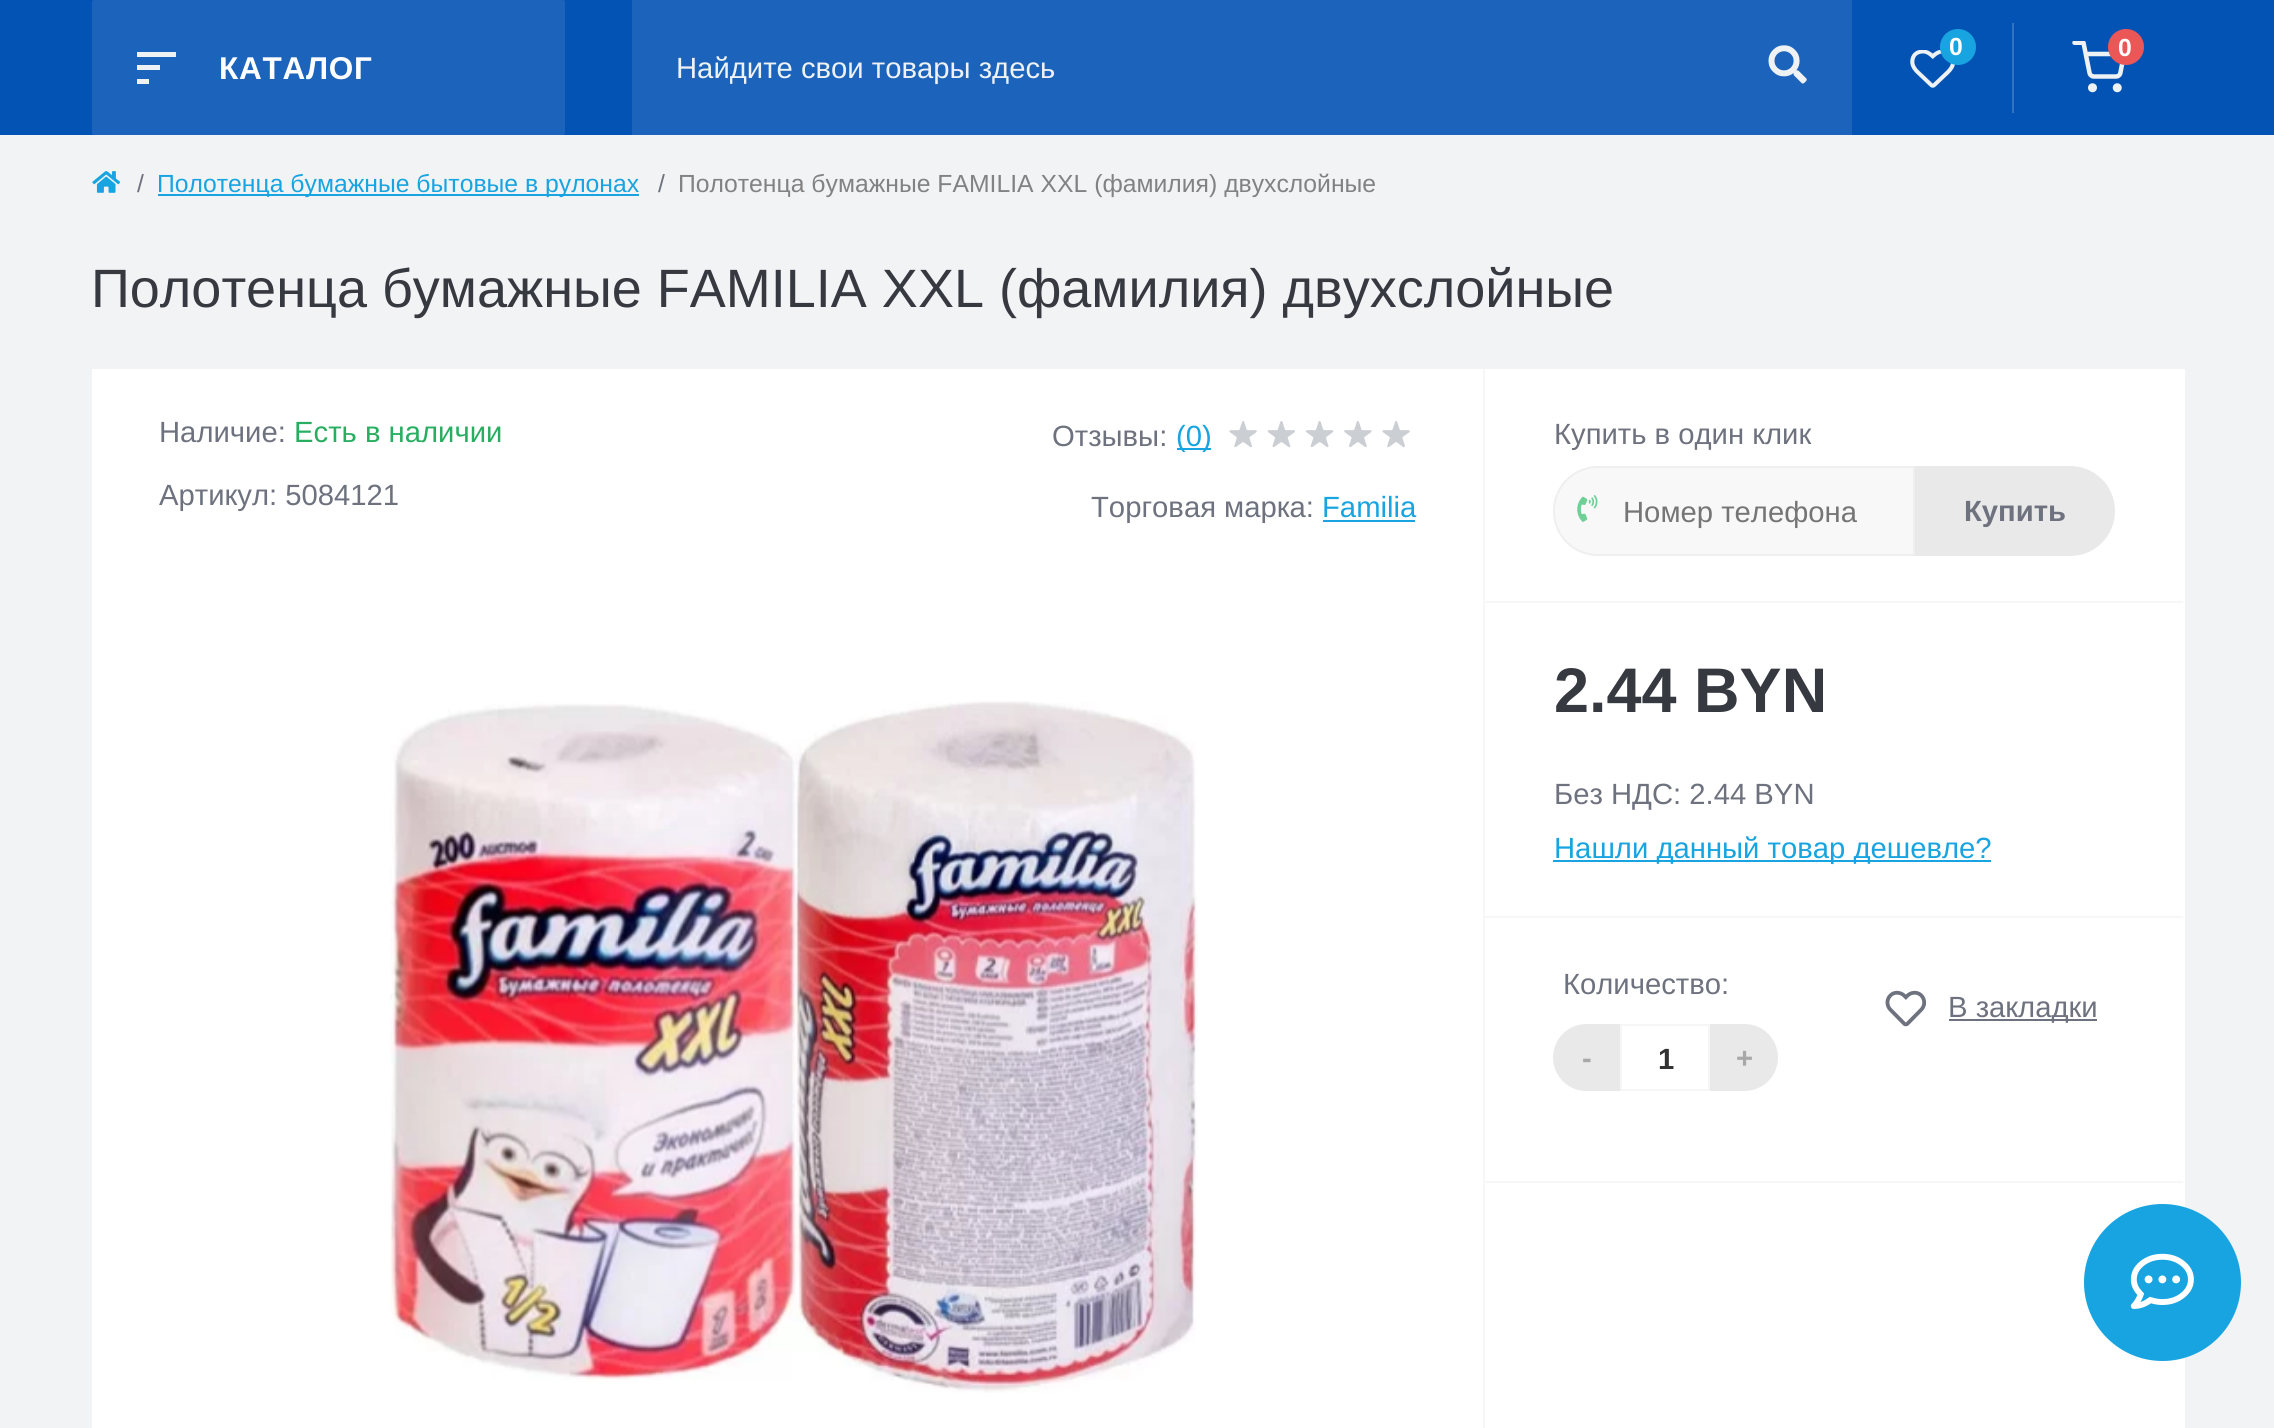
import math
import cairocffi as cairo

surface = cairo.ImageSurface(cairo.FORMAT_RGB24, 2274, 1428)
cr = cairo.Context(surface)
options = cairo.FontOptions()
options.set_hint_metrics(cairo.HINT_METRICS_OFF)
options.set_hint_style(cairo.HINT_STYLE_NONE)
cr.set_font_options(options)
cr.set_miter_limit(4)


def use_color(code):
    cr.set_source_rgb(*(v / 255 for v in bytes.fromhex(code[-6:])))


def spaced_text(x, y, s, letter, word):
    cr.move_to(x, y)
    for ch in s:
        cr.show_text(ch)
        cr.rel_move_to(letter + word * (ch == ' '), 0)


def round_rect(x, y, w, h, r):
    cr.new_sub_path()
    for i, (u, v) in enumerate([(x + w - r, y + h - r), (x + r, y + h - r), (x + r, y + r), (x + w - r, y + r)]):
        cr.arc(u, v, r, i * math.pi / 2, (i + 1) * math.pi / 2)
    cr.close_path()


def picture(path, x, y, w, h):
    cr.save()
    cr.set_source_surface(cairo.ImageSurface.create_from_png(path), x, y)
    cr.rectangle(x, y, w, h)
    cr.fill()
    cr.restore()


use_color("#f2f3f5")
cr.paint()
use_color("#0353b4")
cr.rectangle(0, 0, 2274, 135)
cr.fill()
use_color("#1c64bb")
round_rect(92, 0, 473, 135, 2)
cr.fill()
use_color("#eef2f5")
cr.rectangle(137, 52, 39, 5)
cr.fill()
cr.rectangle(137, 65, 23, 5)
cr.fill()
cr.rectangle(137, 79, 12, 5)
cr.fill()
cr.select_font_face("Liberation Sans", cairo.FONT_SLANT_NORMAL, cairo.FONT_WEIGHT_BOLD)
cr.set_font_size(31.5)
use_color("#ffffff")
spaced_text(219, 79, "КАТАЛОГ", 0.75, 0)
picture("img1.png", 1910, 50, 45, 38)
use_color("#18a4e1")
cr.arc(1958, 47, 18, 0, 2 * math.pi)
cr.fill()
cr.set_font_size(24.75)
use_color("#ffffff")
cr.move_to(1949, 55)
cr.show_text("0")
use_color("#3373c0")
cr.rectangle(2012, 23, 2, 90)
cr.fill()
picture("img2.png", 2072, 41, 53, 52)
use_color("#eb5757")
cr.arc(2126, 47, 18, 0, 2 * math.pi)
cr.fill()
use_color("#ffffff")
cr.move_to(2118, 56)
cr.show_text("0")
use_color("#1c64bb")
cr.rectangle(632, 0, 1220, 135)
cr.fill()
cr.select_font_face("Liberation Sans")
cr.set_font_size(29.25)
use_color("#eef2f5")
cr.move_to(676, 78)
cr.show_text("Найдите свои товары здесь")
picture("img3.png", 1768, 45, 39, 39)
picture("img4.png", 92, 171, 29, 22)
cr.set_font_size(24.75)
use_color("#6e727e")
cr.move_to(137, 192)
cr.show_text("/")
use_color("#18a4e1")
cr.rectangle(158, 194, 481, 2)
cr.fill()
cr.move_to(157, 192)
cr.show_text("Полотенца бумажные бытовые в рулонах")
use_color("#6e727e")
cr.move_to(658, 192)
cr.show_text("/")
use_color("#828282")
cr.move_to(678, 192)
cr.show_text("Полотенца бумажные FAMILIA XXL (фамилия) двухслойные")
cr.set_font_size(54)
use_color("#373941")
cr.move_to(91, 307)
cr.show_text("Полотенца бумажные FAMILIA XXL (фамилия) двухслойные")
use_color("#ffffff")
cr.rectangle(92, 369, 2093, 1059)
cr.fill()
use_color("#f7f7f7")
cr.rectangle(1483, 369, 2, 1059)
cr.fill()
cr.set_font_size(29.25)
use_color("#6e727e")
cr.move_to(159, 442)
cr.show_text("Наличие:")
use_color("#27ae60")
cr.move_to(294, 442)
cr.show_text("Есть в наличии")
use_color("#6e727e")
cr.move_to(159, 505)
cr.show_text("Артикул: 5084121")
cr.move_to(1052, 446)
cr.show_text("Отзывы:")
use_color("#18a4e1")
cr.rectangle(1177, 448, 34, 2)
cr.fill()
cr.move_to(1176, 446)
cr.show_text("(0)")
picture("img5.png", 1229, 421, 28, 27)
picture("img6.png", 1267, 421, 28, 27)
picture("img7.png", 1306, 421, 28, 27)
picture("img8.png", 1344, 421, 28, 27)
picture("img5.png", 1382, 421, 28, 27)
use_color("#6e727e")
cr.move_to(1091, 517)
cr.show_text("Торговая марка:")
use_color("#18a4e1")
cr.move_to(1322, 517)
cr.show_text("Familia")
cr.rectangle(1323, 520, 92, 2)
cr.fill()
picture("img9.png", 390, 701, 808, 692)
use_color("#f7f7f7")
cr.rectangle(1485, 601, 698, 2)
cr.fill()
use_color("#6e727e")
cr.move_to(1554, 444)
cr.show_text("Купить в один клик")
use_color("#f8f8f8")
cr.new_path()
cr.move_to(1598, 466)
cr.line_to(1915, 466)
cr.line_to(1915, 556)
cr.line_to(1598, 556)
cr.curve_to(1573, 556, 1553, 536, 1553, 511)
cr.curve_to(1553, 486, 1573, 466, 1598, 466)
cr.close_path()
cr.fill()
picture("img10.png", 1577, 495, 21, 27)
cr.new_path()
cr.move_to(1598, 467)
cr.line_to(1914, 467)
cr.line_to(1914, 555)
cr.line_to(1598, 555)
cr.curve_to(1573.5, 555, 1554, 535.5, 1554, 511)
cr.curve_to(1554, 486.5, 1573.5, 467, 1598, 467)
cr.close_path()
use_color("#efefef")
cr.stroke()
use_color("#757575")
cr.move_to(1623, 522)
cr.show_text("Номер телефона")
use_color("#e9e9e9")
cr.new_path()
cr.move_to(1915, 466)
cr.line_to(2070, 466)
cr.curve_to(2095, 466, 2115, 486, 2115, 511)
cr.curve_to(2115, 536, 2095, 556, 2070, 556)
cr.line_to(1915, 556)
cr.close_path()
cr.fill()
cr.select_font_face("Liberation Sans", cairo.FONT_SLANT_NORMAL, cairo.FONT_WEIGHT_BOLD)
use_color("#6e727e")
cr.move_to(1964, 521)
cr.show_text("Купить")
use_color("#f7f7f7")
cr.rectangle(1485, 916, 698, 2)
cr.fill()
cr.set_font_size(63)
use_color("#373941")
cr.move_to(1554, 712)
cr.show_text("2.44 BYN")
cr.select_font_face("Liberation Sans")
cr.set_font_size(29.25)
use_color("#6e727e")
cr.move_to(1554, 804)
cr.show_text("Без НДС: 2.44 BYN")
use_color("#18a4e1")
cr.rectangle(1553, 860, 438, 2)
cr.fill()
cr.move_to(1554, 858)
cr.show_text("Нашли данный товар дешевле?")
use_color("#f7f7f7")
cr.rectangle(1485, 1181, 698, 2)
cr.fill()
use_color("#6e727e")
cr.move_to(1563, 994)
cr.show_text("Количество:")
use_color("#e9e9e9")
cr.new_path()
cr.move_to(1586.5, 1024)
cr.line_to(1620, 1024)
cr.line_to(1620, 1091)
cr.line_to(1586.5, 1091)
cr.curve_to(1568, 1091, 1553, 1076, 1553, 1057.5)
cr.curve_to(1553, 1039, 1568, 1024, 1586.5, 1024)
cr.close_path()
cr.fill()
cr.select_font_face("Liberation Sans", cairo.FONT_SLANT_NORMAL, cairo.FONT_WEIGHT_BOLD)
use_color("#a8a8a8")
cr.move_to(1582, 1068)
cr.show_text("-")
cr.rectangle(1621, 1025, 88, 65)
use_color("#f6f6f6")
cr.stroke()
use_color("#333333")
cr.move_to(1658, 1069)
cr.show_text("1")
use_color("#e9e9e9")
cr.new_path()
cr.move_to(1710, 1024)
cr.line_to(1744.5, 1024)
cr.curve_to(1763, 1024, 1778, 1039, 1778, 1057.5)
cr.curve_to(1778, 1076, 1763, 1091, 1744.5, 1091)
cr.line_to(1710, 1091)
cr.close_path()
cr.fill()
use_color("#a8a8a8")
cr.move_to(1736, 1068)
cr.show_text("+")
picture("img11.png", 1885, 990, 42, 37)
use_color("#6e727e")
cr.rectangle(1949, 1019, 148, 2)
cr.fill()
cr.select_font_face("Liberation Sans")
cr.move_to(1948, 1017)
cr.show_text("В закладки")
use_color("#18a4e1")
cr.new_path()
cr.arc(2162.5, 1282.5, 78.5, 0, 2 * math.pi)
cr.fill()
picture("img12.png", 2130, 1253, 64, 56)
surface.write_to_png("result.png")
